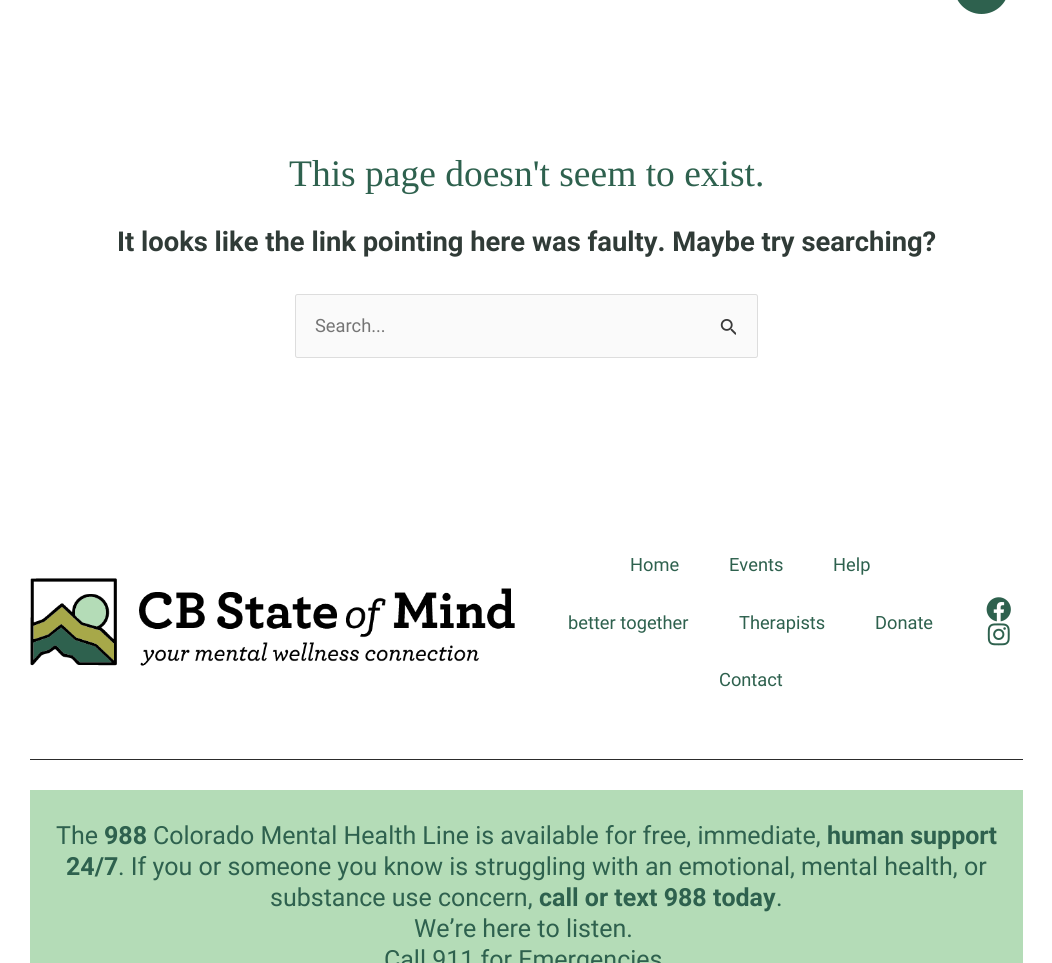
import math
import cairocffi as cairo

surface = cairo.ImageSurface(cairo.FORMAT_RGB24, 1052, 963)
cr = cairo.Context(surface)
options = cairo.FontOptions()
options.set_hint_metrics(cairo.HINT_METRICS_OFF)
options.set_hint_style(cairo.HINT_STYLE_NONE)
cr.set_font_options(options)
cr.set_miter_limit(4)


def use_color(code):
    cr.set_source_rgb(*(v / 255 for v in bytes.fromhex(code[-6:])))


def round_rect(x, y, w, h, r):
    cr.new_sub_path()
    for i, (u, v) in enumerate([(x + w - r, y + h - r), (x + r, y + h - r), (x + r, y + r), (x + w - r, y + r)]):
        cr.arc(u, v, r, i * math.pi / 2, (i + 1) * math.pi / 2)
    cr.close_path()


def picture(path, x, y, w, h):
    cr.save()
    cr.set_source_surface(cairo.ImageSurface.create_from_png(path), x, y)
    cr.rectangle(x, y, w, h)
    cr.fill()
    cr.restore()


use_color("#ffffff")
cr.paint()
use_color("#2e614e")
round_rect(954, -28, 55, 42, 27.5)
cr.fill()
cr.select_font_face("Liberation Serif")
cr.set_font_size(37.5)
cr.move_to(289, 186)
cr.show_text("This page doesn't seem to exist.")
cr.select_font_face("Roboto", cairo.FONT_SLANT_NORMAL, cairo.FONT_WEIGHT_BOLD)
cr.set_font_size(27.35)
use_color("#303b37")
cr.move_to(117, 251)
cr.show_text("It looks like the link pointing here was faulty. Maybe try searching?")
use_color("#fafafa")
round_rect(295.5, 294.5, 462, 63, 2)
cr.fill_preserve()
use_color("#dddddd")
cr.set_line_width(1)
cr.stroke()
cr.select_font_face("Roboto")
cr.set_font_size(18.25)
use_color("#757575")
cr.move_to(315, 332)
cr.show_text("Search...")
picture("img1.png", 720, 319, 16, 16)
use_color("#2c2c2c")
cr.rectangle(30, 759, 993, 1)
cr.fill()
picture("img2.png", 30, 578, 485, 88)
use_color("#2e614e")
cr.move_to(630, 571)
cr.show_text("Home")
cr.move_to(729, 571)
cr.show_text("Events")
cr.move_to(833, 571)
cr.show_text("Help")
cr.move_to(568, 629)
cr.show_text("better together")
cr.move_to(739, 629)
cr.show_text("Therapists")
cr.move_to(875, 629)
cr.show_text("Donate")
cr.move_to(719, 686)
cr.show_text("Contact")
picture("img3.png", 986, 597, 25, 25)
picture("img4.png", 987, 623, 23, 23)
use_color("#b4dcb7")
cr.rectangle(30, 790, 993, 173)
cr.fill()
cr.set_font_size(25)
use_color("#2e614e")
cr.move_to(56, 844)
cr.show_text("The")
cr.select_font_face("Roboto", cairo.FONT_SLANT_NORMAL, cairo.FONT_WEIGHT_BOLD)
cr.move_to(104, 844)
cr.show_text("988")
cr.select_font_face("Roboto")
cr.move_to(153, 844)
cr.show_text("Colorado Mental Health Line is available for free, immediate,")
cr.select_font_face("Roboto", cairo.FONT_SLANT_NORMAL, cairo.FONT_WEIGHT_BOLD)
cr.move_to(827, 844)
cr.show_text("human support")
cr.move_to(66, 875)
cr.show_text("24/7")
cr.select_font_face("Roboto")
cr.move_to(118, 875)
cr.show_text(". If you or someone you know is struggling with an emotional, mental health, or")
cr.move_to(270, 906)
cr.show_text("substance use concern,")
cr.select_font_face("Roboto", cairo.FONT_SLANT_NORMAL, cairo.FONT_WEIGHT_BOLD)
cr.move_to(539, 906)
cr.show_text("call or text 988 today")
cr.select_font_face("Roboto")
cr.move_to(776, 906)
cr.show_text(".")
cr.move_to(414, 937)
cr.show_text("We’re here to listen.")
cr.move_to(384, 968)
cr.show_text("Call 911 for Emergencies")
surface.write_to_png("result.png")
